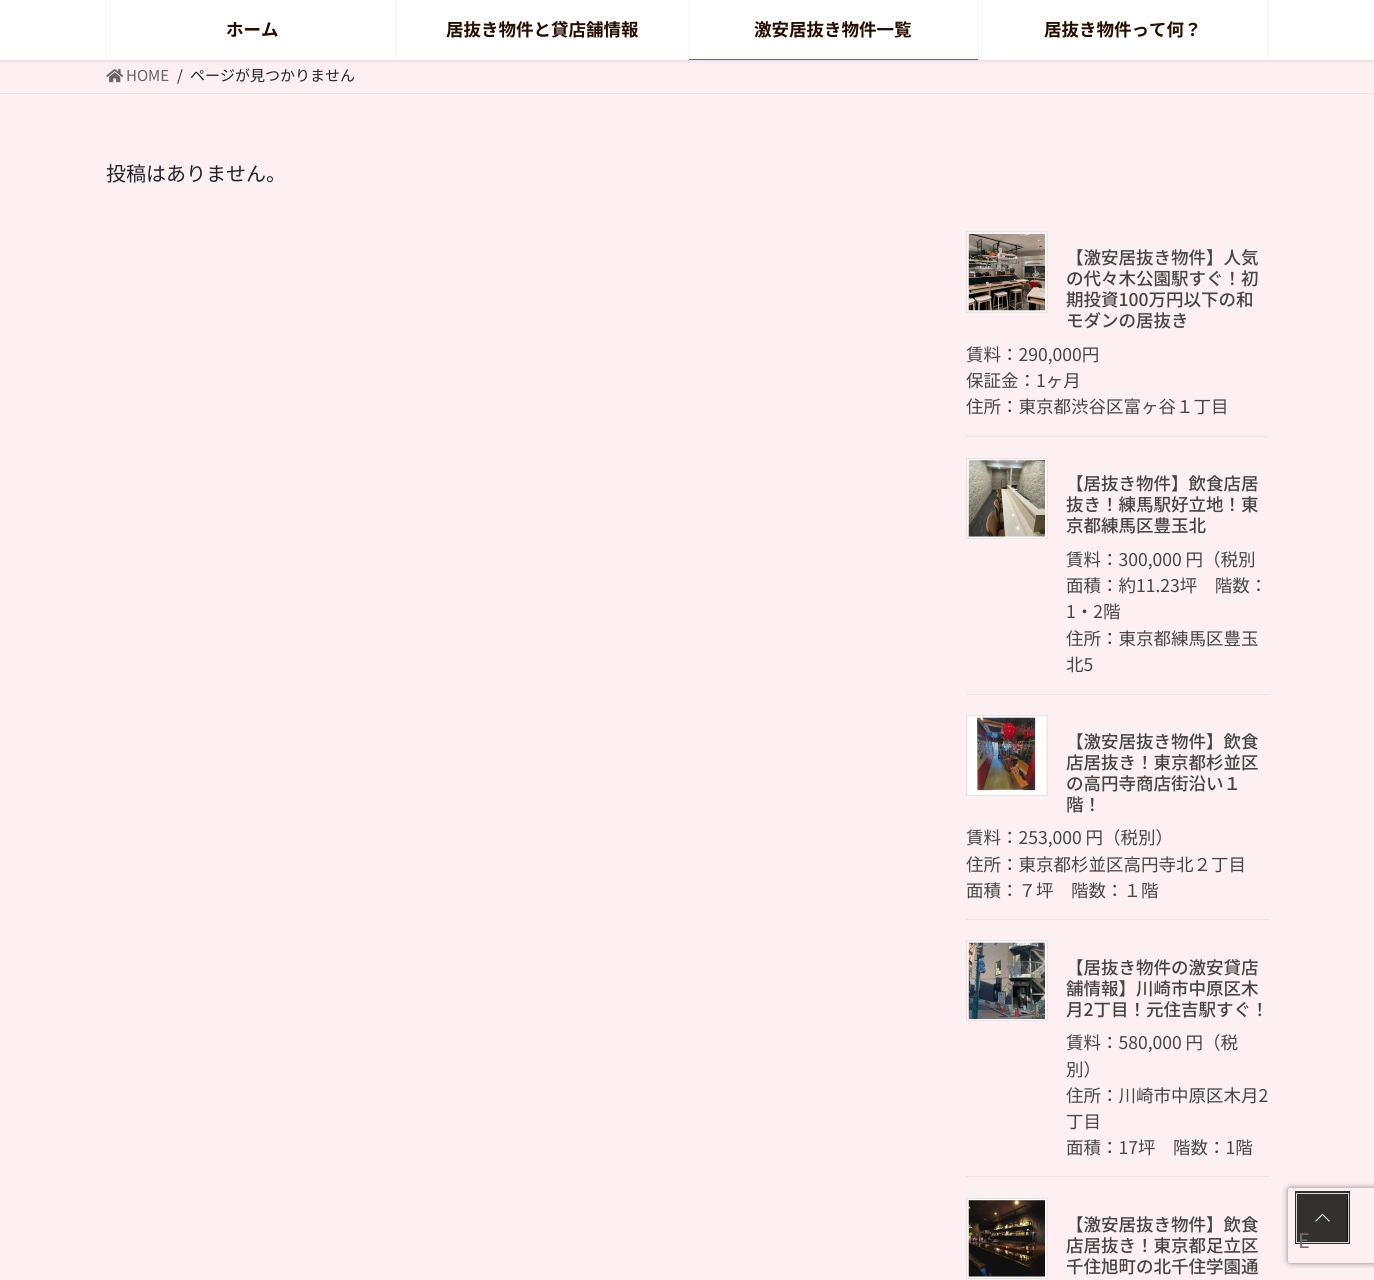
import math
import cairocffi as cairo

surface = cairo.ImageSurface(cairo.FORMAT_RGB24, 1374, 1280)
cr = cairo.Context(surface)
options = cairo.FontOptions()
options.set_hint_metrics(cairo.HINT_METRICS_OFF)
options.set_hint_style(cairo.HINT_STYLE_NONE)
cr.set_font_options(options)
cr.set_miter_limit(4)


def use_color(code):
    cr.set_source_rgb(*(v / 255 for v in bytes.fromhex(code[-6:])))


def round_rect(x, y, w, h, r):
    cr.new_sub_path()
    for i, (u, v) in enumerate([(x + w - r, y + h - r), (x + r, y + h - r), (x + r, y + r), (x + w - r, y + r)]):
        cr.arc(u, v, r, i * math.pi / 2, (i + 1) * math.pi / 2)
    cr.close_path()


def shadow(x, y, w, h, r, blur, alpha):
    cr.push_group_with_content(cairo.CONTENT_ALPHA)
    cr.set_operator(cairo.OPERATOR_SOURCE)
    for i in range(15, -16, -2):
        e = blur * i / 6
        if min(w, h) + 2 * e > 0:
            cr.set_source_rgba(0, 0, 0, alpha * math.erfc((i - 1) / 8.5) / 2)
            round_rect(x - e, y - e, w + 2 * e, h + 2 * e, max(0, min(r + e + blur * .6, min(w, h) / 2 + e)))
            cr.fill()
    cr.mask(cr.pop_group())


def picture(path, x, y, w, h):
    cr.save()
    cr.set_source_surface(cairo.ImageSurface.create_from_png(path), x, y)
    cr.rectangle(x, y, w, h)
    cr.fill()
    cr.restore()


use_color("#fdeff2")
cr.paint()
use_color("#000000")
shadow(0, 1, 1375, 60, 0, 2, 0.1)
use_color("#ffffff")
cr.rectangle(0, 0, 1374, 60)
cr.fill()
use_color("#f5f5f5")
cr.rectangle(106, 0, 1, 60)
cr.fill()
cr.select_font_face("Noto Sans JP", cairo.FONT_SLANT_NORMAL, cairo.FONT_WEIGHT_BOLD)
cr.set_font_size(17.5)
use_color("#250d00")
cr.move_to(226, 36)
cr.show_text("ホーム")
use_color("#f5f5f5")
cr.rectangle(396, 0, 1, 60)
cr.fill()
use_color("#250d00")
cr.move_to(446, 36)
cr.show_text("居抜き物件と貸店舗情報")
use_color("#f5f5f5")
cr.rectangle(688, 0, 1, 60)
cr.fill()
use_color("#250d00")
cr.move_to(754, 36)
cr.show_text("激安居抜き物件一覧")
use_color("#946243")
cr.rectangle(689, 59, 289, 1)
cr.fill()
use_color("#f5f5f5")
cr.rectangle(1268, 0, 1, 60)
cr.fill()
cr.rectangle(978, 0, 1, 60)
cr.fill()
use_color("#250d00")
cr.move_to(1044, 36)
cr.show_text("居抜き物件って何？")
use_color("#f0e3e6")
cr.rectangle(0, 93, 1374, 1)
cr.fill()
picture("img1.png", 106, 69, 18, 14)
cr.select_font_face("Noto Sans JP")
cr.set_font_size(15)
use_color("#666666")
cr.move_to(126, 81)
cr.show_text("HOME")
use_color("#212529")
cr.move_to(177, 81)
cr.show_text("/")
cr.move_to(190, 81)
cr.show_text("ページが見つかりません")
cr.set_font_size(20)
cr.move_to(106, 181)
cr.show_text("投稿はありません。")
use_color("#f0e3e6")
cr.rectangle(966, 436, 303, 1)
cr.fill()
cr.rectangle(966.5, 231.5, 81, 81)
use_color("#e5e5e5")
cr.set_line_width(1)
cr.stroke()
cr.rectangle(968.5, 233.5, 77, 77)
use_color("#ffffff")
cr.stroke()
picture("img2.png", 968, 234, 77, 77)
cr.select_font_face("Noto Sans JP Medium")
cr.set_font_size(17.5)
use_color("#464646")
cr.move_to(1066, 264)
cr.show_text("【激安居抜き物件】人気")
cr.move_to(1066, 285)
cr.show_text("の代々木公園駅すぐ！初")
cr.move_to(1066, 306)
cr.show_text("期投資100万円以下の和")
cr.move_to(1066, 327)
cr.show_text("モダンの居抜き")
cr.select_font_face("Noto Sans JP")
cr.move_to(966, 361)
cr.show_text("賃料：290,000円")
cr.move_to(966, 387)
cr.show_text("保証金：1ヶ月")
cr.move_to(966, 413)
cr.show_text("住所：東京都渋谷区富ヶ谷１丁目")
use_color("#f0e3e6")
cr.rectangle(966, 694, 303, 1)
cr.fill()
cr.rectangle(966.5, 458.5, 81, 80)
use_color("#e5e5e5")
cr.stroke()
cr.rectangle(968.5, 459.5, 77, 78)
use_color("#ffffff")
cr.stroke()
picture("img3.png", 968, 460, 77, 77)
cr.select_font_face("Noto Sans JP Medium")
use_color("#464646")
cr.move_to(1066, 490)
cr.show_text("【居抜き物件】飲食店居")
cr.move_to(1066, 511)
cr.show_text("抜き！練馬駅好立地！東")
cr.move_to(1066, 532)
cr.show_text("京都練馬区豊玉北")
cr.select_font_face("Noto Sans JP")
cr.move_to(1066, 566)
cr.show_text("賃料：300,000 円（税別")
cr.move_to(1066, 592)
cr.show_text("面積：約11.23坪　階数：")
cr.move_to(1066, 618)
cr.show_text("1・2階")
cr.move_to(1066, 645)
cr.show_text("住所：東京都練馬区豊玉")
cr.move_to(1066, 671)
cr.show_text("北5")
use_color("#f0e3e6")
cr.rectangle(966, 919, 303, 1)
cr.fill()
cr.rectangle(966.5, 715.5, 81, 80)
use_color("#e5e5e5")
cr.stroke()
cr.rectangle(968.5, 716.5, 77, 78)
use_color("#ffffff")
cr.stroke()
picture("img4.png", 969, 717, 76, 77)
cr.select_font_face("Noto Sans JP Medium")
use_color("#464646")
cr.move_to(1066, 748)
cr.show_text("【激安居抜き物件】飲食")
cr.move_to(1066, 769)
cr.show_text("店居抜き！東京都杉並区")
cr.move_to(1066, 790)
cr.show_text("の高円寺商店街沿い１")
cr.move_to(1066, 811)
cr.show_text("階！")
cr.select_font_face("Noto Sans JP")
cr.move_to(966, 844)
cr.show_text("賃料：253,000 円（税別）")
cr.move_to(966, 871)
cr.show_text("住所：東京都杉並区高円寺北２丁目")
cr.move_to(966, 897)
cr.show_text("面積：７坪　階数：１階")
use_color("#f0e3e6")
cr.rectangle(966, 1176, 303, 1)
cr.fill()
cr.rectangle(966.5, 940.5, 81, 80)
use_color("#e5e5e5")
cr.stroke()
cr.rectangle(968.5, 941.5, 77, 78)
use_color("#ffffff")
cr.stroke()
picture("img5.png", 968, 942, 77, 77)
cr.select_font_face("Noto Sans JP Medium")
use_color("#464646")
cr.move_to(1066, 974)
cr.show_text("【居抜き物件の激安貸店")
cr.move_to(1066, 995)
cr.show_text("舗情報】川崎市中原区木")
cr.move_to(1066, 1016)
cr.show_text("月2丁目！元住吉駅すぐ！")
cr.select_font_face("Noto Sans JP")
cr.move_to(1066, 1049)
cr.show_text("賃料：580,000 円（税")
cr.move_to(1066, 1076)
cr.show_text("別）")
cr.move_to(1066, 1102)
cr.show_text("住所：川崎市中原区木月2")
cr.move_to(1066, 1128)
cr.show_text("丁目")
cr.move_to(1066, 1154)
cr.show_text("面積：17坪　階数：1階")
cr.rectangle(966.5, 1198.5, 81, 80)
use_color("#e5e5e5")
cr.stroke()
cr.rectangle(968.5, 1199.5, 77, 78)
use_color("#ffffff")
cr.stroke()
picture("img6.png", 968, 1200, 77, 77)
cr.select_font_face("Noto Sans JP Medium")
use_color("#464646")
cr.move_to(1066, 1231)
cr.show_text("【激安居抜き物件】飲食")
cr.move_to(1066, 1252)
cr.show_text("店居抜き！東京都足立区")
cr.move_to(1066, 1273)
cr.show_text("千住旭町の北千住学園通")
cr.save()
cr.set_fill_rule(cairo.FILL_RULE_EVEN_ODD)
cr.new_path()
cr.move_to(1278, 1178)
cr.line_to(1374, 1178)
cr.line_to(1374, 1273)
cr.line_to(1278, 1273)
cr.close_path()
cr.move_to(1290.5, 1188)
cr.line_to(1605.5, 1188)
cr.curve_to(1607, 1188, 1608, 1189, 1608, 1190.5)
cr.line_to(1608, 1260.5)
cr.curve_to(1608, 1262, 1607, 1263, 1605.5, 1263)
cr.line_to(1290.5, 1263)
cr.curve_to(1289, 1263, 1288, 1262, 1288, 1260.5)
cr.line_to(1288, 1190.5)
cr.curve_to(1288, 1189, 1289, 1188, 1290.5, 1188)
cr.close_path()
cr.clip()
use_color("#808080")
shadow(1288, 1188, 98, 75, 2.5, 3, 1)
cr.restore()
cr.rectangle(1296.5, 1192.5, 52, 50)
use_color("#333030")
cr.set_line_width(3)
cr.stroke()
cr.rectangle(1296.5, 1193.5, 52, 49)
use_color("#d6d6d6")
cr.set_line_width(1)
cr.stroke()
cr.set_source_rgba(0, 0, 0, 0.8)
cr.rectangle(1298, 1194, 50, 47)
cr.fill()
picture("img7.png", 1315, 1213, 15, 9)
cr.select_font_face("Noto Sans JP")
cr.set_font_size(20)
use_color("#766f71")
cr.move_to(1298, 1248)
cr.show_text("E")
surface.write_to_png("result.png")
